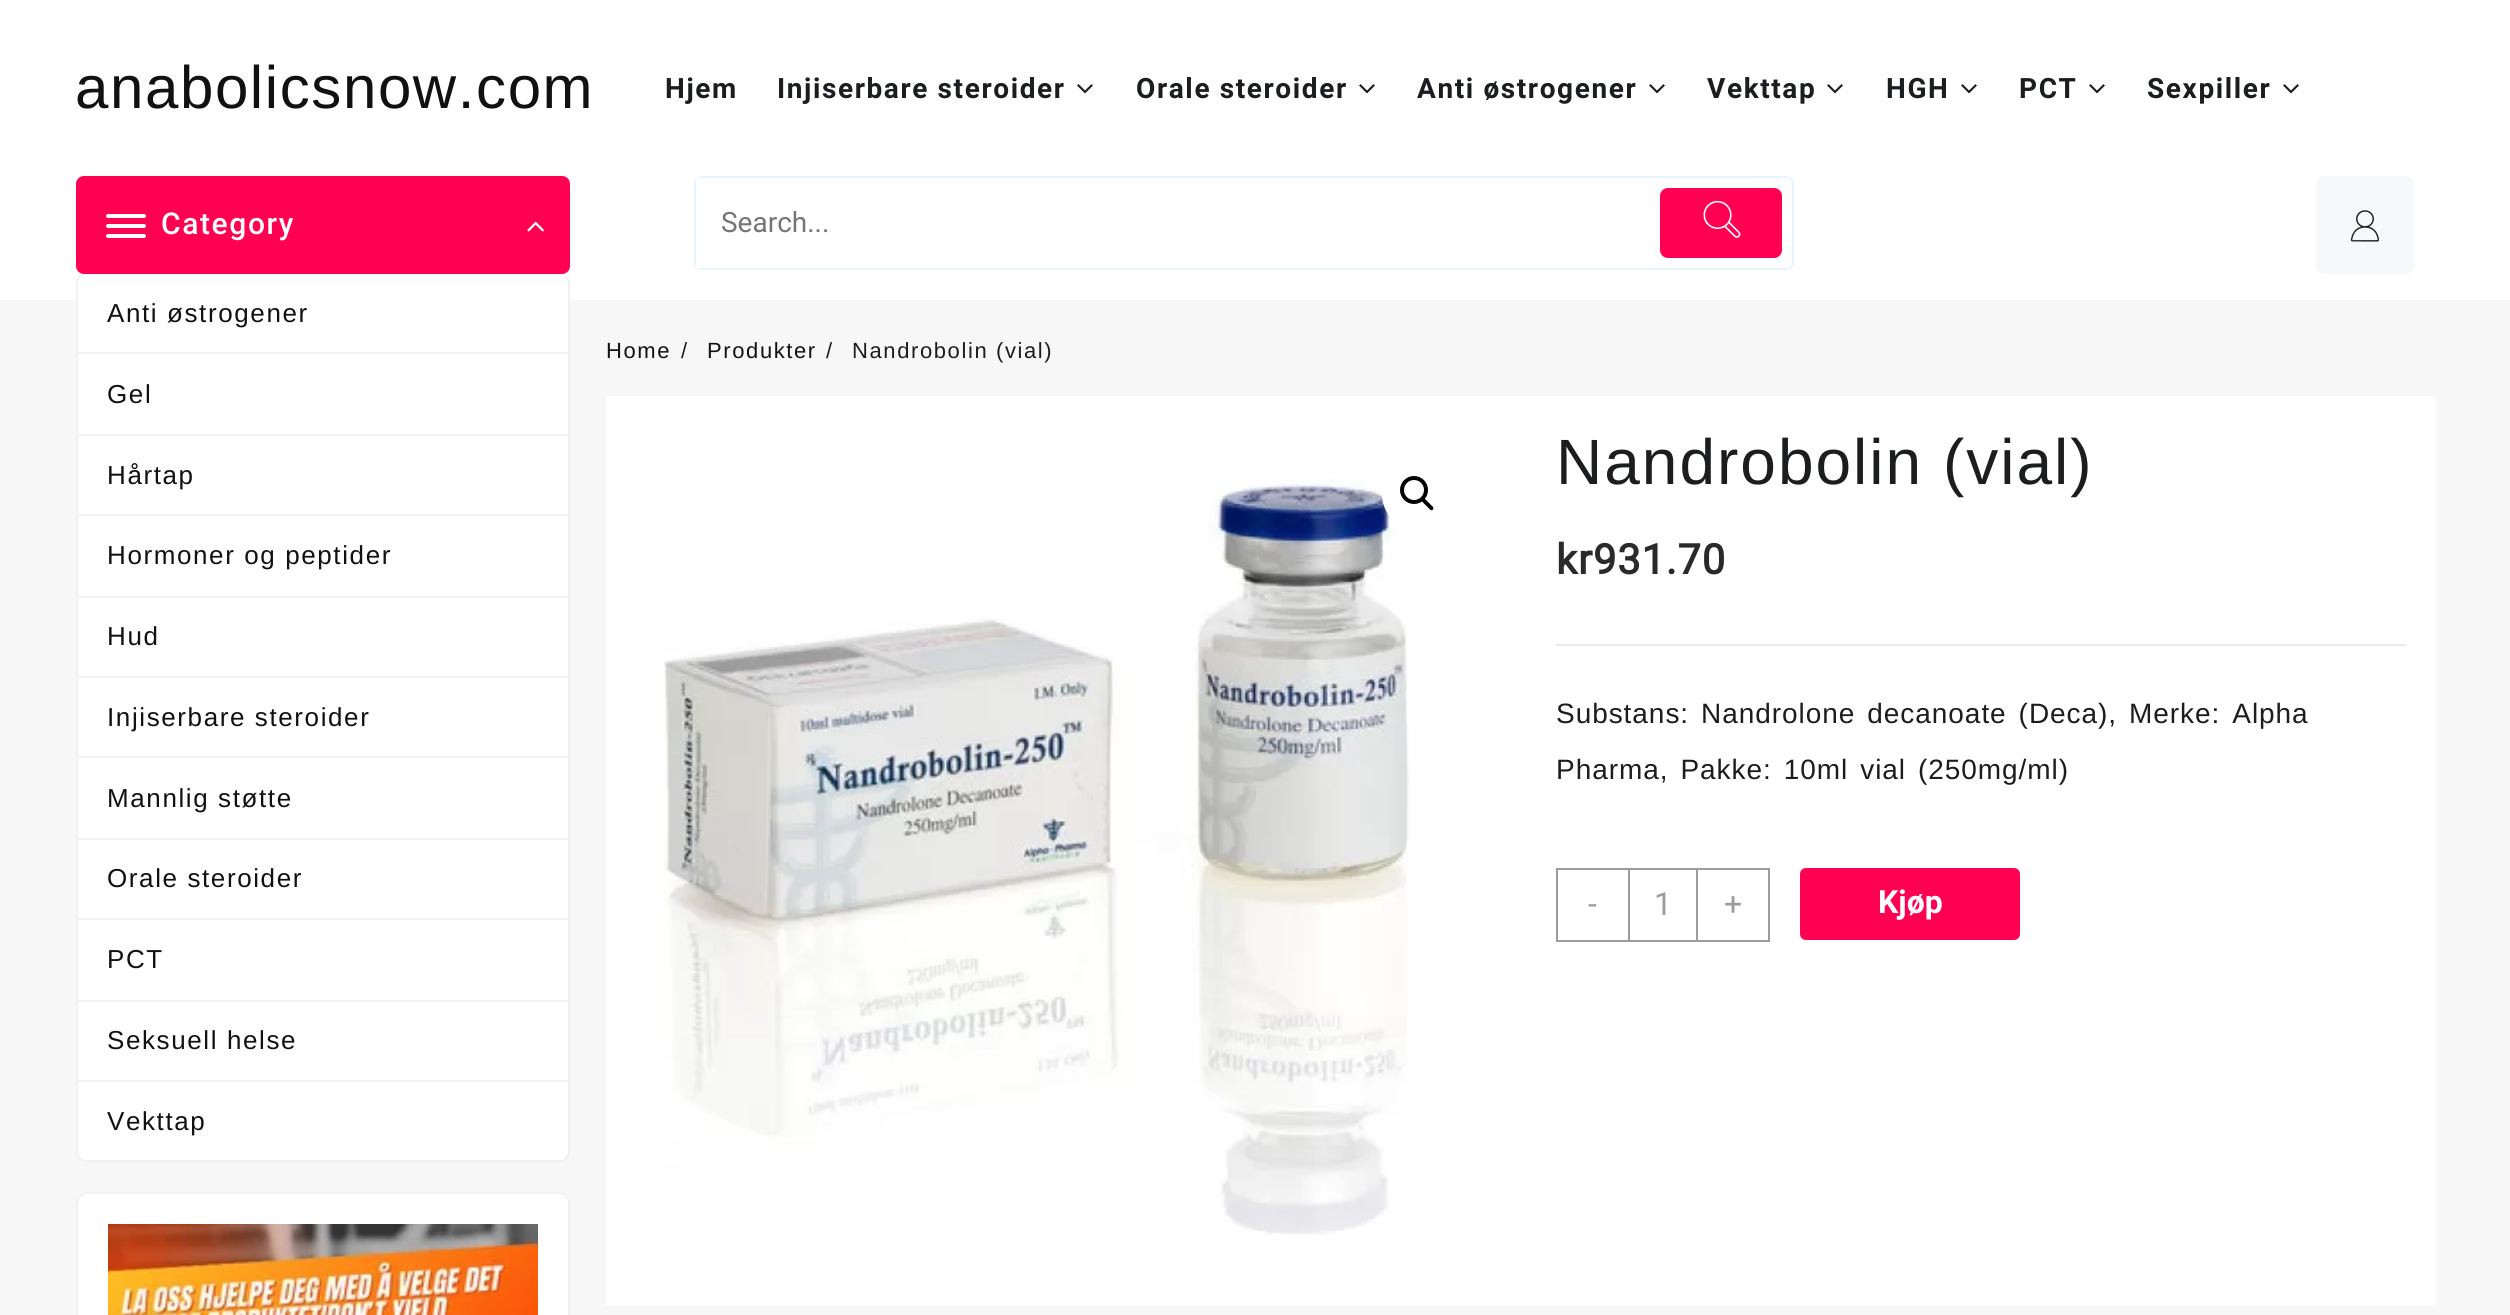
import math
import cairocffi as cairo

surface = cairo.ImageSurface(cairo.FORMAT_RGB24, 2510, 1315)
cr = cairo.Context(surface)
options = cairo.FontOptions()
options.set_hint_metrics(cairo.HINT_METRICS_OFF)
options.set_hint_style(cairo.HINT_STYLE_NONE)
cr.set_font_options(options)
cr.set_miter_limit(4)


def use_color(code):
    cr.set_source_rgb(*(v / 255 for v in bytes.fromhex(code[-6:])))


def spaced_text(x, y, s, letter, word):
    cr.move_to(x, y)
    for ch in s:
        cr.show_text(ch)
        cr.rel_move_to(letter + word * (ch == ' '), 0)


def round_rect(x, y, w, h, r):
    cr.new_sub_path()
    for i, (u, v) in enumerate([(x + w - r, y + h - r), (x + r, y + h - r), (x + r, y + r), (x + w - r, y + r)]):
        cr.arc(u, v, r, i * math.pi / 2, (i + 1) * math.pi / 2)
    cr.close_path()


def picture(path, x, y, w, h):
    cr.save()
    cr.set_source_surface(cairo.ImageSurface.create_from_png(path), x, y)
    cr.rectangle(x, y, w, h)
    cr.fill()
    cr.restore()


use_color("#f7f7f7")
cr.paint()
use_color("#ffffff")
cr.rectangle(0, 0, 2510, 300)
cr.fill()
cr.select_font_face("Liberation Sans")
cr.set_font_size(60)
use_color("#111111")
spaced_text(75, 108, "anabolicsnow.com", 1.6, 0)
cr.select_font_face("Roboto", cairo.FONT_SLANT_NORMAL, cairo.FONT_WEIGHT_BOLD)
cr.set_font_size(28)
use_color("#1c1d1e")
spaced_text(665, 98, "Hjem", 1.6, 0)
spaced_text(777, 98, "Injiserbare steroider", 1.6, 0)
picture("img1.png", 1077, 84, 16, 10)
spaced_text(1136, 98, "Orale steroider", 1.6, 0)
picture("img1.png", 1359, 84, 16, 10)
spaced_text(1417, 98, "Anti østrogener", 1.6, 0)
picture("img1.png", 1649, 84, 16, 10)
spaced_text(1707, 98, "Vekttap", 1.6, 0)
picture("img1.png", 1827, 84, 16, 10)
spaced_text(1886, 98, "HGH", 1.6, 0)
picture("img1.png", 1961, 84, 16, 10)
spaced_text(2019, 98, "PCT", 1.6, 0)
picture("img1.png", 2089, 84, 16, 10)
spaced_text(2147, 98, "Sexpiller", 1.6, 0)
picture("img1.png", 2283, 84, 16, 10)
use_color("#ff0052")
round_rect(76, 176, 494, 98, 8)
cr.fill()
use_color("#ffffff")
round_rect(106, 214, 40, 4, 2)
cr.fill()
round_rect(106, 224, 40, 4, 2)
cr.fill()
round_rect(106, 234, 40, 4, 2)
cr.fill()
cr.select_font_face("Roboto Medium")
cr.set_font_size(30)
spaced_text(161, 234, "Category", 1.6, 0)
picture("img2.png", 527, 221, 17, 11)
round_rect(76, 274, 494, 888, 10)
cr.fill()
use_color("#f1f1f1")
cr.set_fill_rule(cairo.FILL_RULE_EVEN_ODD)
cr.new_path()
cr.move_to(86, 274)
cr.line_to(560, 274)
cr.curve_to(566, 274, 570, 278, 570, 284)
cr.line_to(570, 1152)
cr.curve_to(570, 1158, 566, 1162, 560, 1162)
cr.line_to(86, 1162)
cr.curve_to(80, 1162, 76, 1158, 76, 1152)
cr.line_to(76, 284)
cr.curve_to(76, 278, 80, 274, 86, 274)
cr.close_path()
cr.move_to(86, 274)
cr.line_to(560, 274)
cr.curve_to(564, 274, 568, 278, 568, 284)
cr.line_to(568, 1152)
cr.curve_to(568, 1156, 564, 1160, 560, 1160)
cr.line_to(86, 1160)
cr.curve_to(82, 1160, 78, 1156, 78, 1152)
cr.line_to(78, 284)
cr.curve_to(78, 278, 82, 274, 86, 274)
cr.close_path()
cr.fill()
cr.rectangle(78, 352, 490, 2)
cr.fill()
cr.select_font_face("Liberation Sans")
cr.set_font_size(26)
use_color("#111111")
spaced_text(107, 322, "Anti østrogener", 1.6, 0)
use_color("#f1f1f1")
cr.rectangle(78, 434, 490, 2)
cr.fill()
use_color("#111111")
spaced_text(107, 403, "Gel", 1.6, 0)
use_color("#f1f1f1")
cr.rectangle(78, 514, 490, 2)
cr.fill()
use_color("#111111")
spaced_text(107, 484, "Hårtap", 1.6, 0)
use_color("#f1f1f1")
cr.rectangle(78, 596, 490, 2)
cr.fill()
use_color("#111111")
spaced_text(107, 564, "Hormoner og peptider", 1.6, 0)
use_color("#f1f1f1")
cr.rectangle(78, 676, 490, 2)
cr.fill()
use_color("#111111")
spaced_text(107, 645, "Hud", 1.6, 0)
use_color("#f1f1f1")
cr.rectangle(78, 756, 490, 2)
cr.fill()
use_color("#111111")
spaced_text(107, 726, "Injiserbare steroider", 1.6, 0)
use_color("#f1f1f1")
cr.rectangle(78, 838, 490, 2)
cr.fill()
use_color("#111111")
spaced_text(107, 807, "Mannlig støtte", 1.6, 0)
use_color("#f1f1f1")
cr.rectangle(78, 918, 490, 2)
cr.fill()
use_color("#111111")
spaced_text(107, 887, "Orale steroider", 1.6, 0)
use_color("#f1f1f1")
cr.rectangle(78, 1000, 490, 2)
cr.fill()
use_color("#111111")
spaced_text(107, 968, "PCT", 1.6, 0)
use_color("#f1f1f1")
cr.rectangle(78, 1080, 490, 2)
cr.fill()
use_color("#111111")
spaced_text(107, 1049, "Seksuell helse", 1.6, 0)
spaced_text(107, 1130, "Vekttap", 1.6, 0)
round_rect(695, 177, 1098, 92, 7)
use_color("#e7f5ff")
cr.stroke()
use_color("#ffffff")
cr.rectangle(696, 178, 5, 90)
cr.fill()
cr.select_font_face("Roboto")
cr.set_font_size(28)
use_color("#757575")
cr.move_to(721, 232)
cr.show_text("Search...")
use_color("#ff0052")
round_rect(1660, 188, 122, 70, 8)
cr.fill()
picture("img3.png", 1703, 200, 38, 38)
use_color("#f7f8f9")
round_rect(2316, 176, 98, 98, 8)
cr.fill()
picture("img4.png", 2350, 210, 29, 32)
cr.select_font_face("Liberation Sans")
cr.set_font_size(22)
use_color("#111111")
spaced_text(606, 358, "Home", 1.6, 0)
use_color("#1c1d1e")
spaced_text(681, 358, "/", 1.6, 0)
use_color("#111111")
spaced_text(707, 358, "Produkter", 1.6, 0)
use_color("#1c1d1e")
spaced_text(826, 358, "/", 1.6, 0)
spaced_text(852, 358, "Nandrobolin (vial)", 1.6, 0)
use_color("#ffffff")
cr.rectangle(606, 396, 1830, 910)
cr.fill()
picture("img5.png", 664, 478, 745, 757)
cr.arc(1418, 494, 36, 0, 2 * math.pi)
cr.fill()
cr.arc(1414, 490, 12, 0, 2 * math.pi)
use_color("#000000")
cr.set_line_width(4)
cr.stroke()
cr.set_fill_rule(cairo.FILL_RULE_WINDING)
cr.new_path()
cr.move_to(1421.5, 498.5)
cr.curve_to(1422, 497.5, 1423.5, 497.5, 1424.5, 498.5)
cr.line_to(1433, 507)
cr.curve_to(1433.5, 507.5, 1433.5, 509, 1433, 509.5)
cr.curve_to(1432, 510.5, 1430.5, 510.5, 1430, 509.5)
cr.line_to(1421.5, 501)
cr.curve_to(1420.5, 500.5, 1420.5, 499, 1421.5, 498.5)
cr.close_path()
cr.fill()
cr.set_font_size(64)
use_color("#1c1d1e")
spaced_text(1556, 484, "Nandrobolin (vial)", 2, 0)
cr.select_font_face("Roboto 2", cairo.FONT_SLANT_NORMAL, cairo.FONT_WEIGHT_BOLD)
cr.set_font_size(41.5)
use_color("#2b2a2a")
spaced_text(1556, 574, "kr931.70", 0.95, 0)
use_color("#eaeaea")
cr.rectangle(1556, 644, 850, 2)
cr.fill()
cr.select_font_face("Liberation Sans")
cr.set_font_size(28)
use_color("#1c1d1e")
spaced_text(1556, 723, "Substans: Nandrolone decanoate (Deca), Merke: Alpha", 0.95, 3.25)
spaced_text(1556, 779, "Pharma, Pakke: 10ml vial (250mg/ml)", 0.95, 3.25)
cr.rectangle(1557, 869, 212, 72)
use_color("#9c9c9c")
cr.set_line_width(2)
cr.stroke()
cr.select_font_face("Roboto")
cr.set_font_size(32)
cr.move_to(1588, 915)
cr.show_text("-")
cr.rectangle(1696, 870, 2, 70)
cr.fill()
cr.rectangle(1628, 870, 2, 70)
cr.fill()
cr.move_to(1654, 915)
cr.show_text("1")
cr.move_to(1724, 915)
cr.show_text("+")
use_color("#ff0052")
round_rect(1800, 868, 220, 72, 6)
cr.fill()
cr.select_font_face("Roboto", cairo.FONT_SLANT_NORMAL, cairo.FONT_WEIGHT_BOLD)
use_color("#ffffff")
cr.move_to(1878, 913)
cr.show_text("Kjøp")
round_rect(77, 1193, 492, 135, 11)
cr.fill_preserve()
use_color("#f1f1f1")
cr.stroke()
picture("img6.png", 108, 1224, 430, 91)
surface.write_to_png("result.png")
